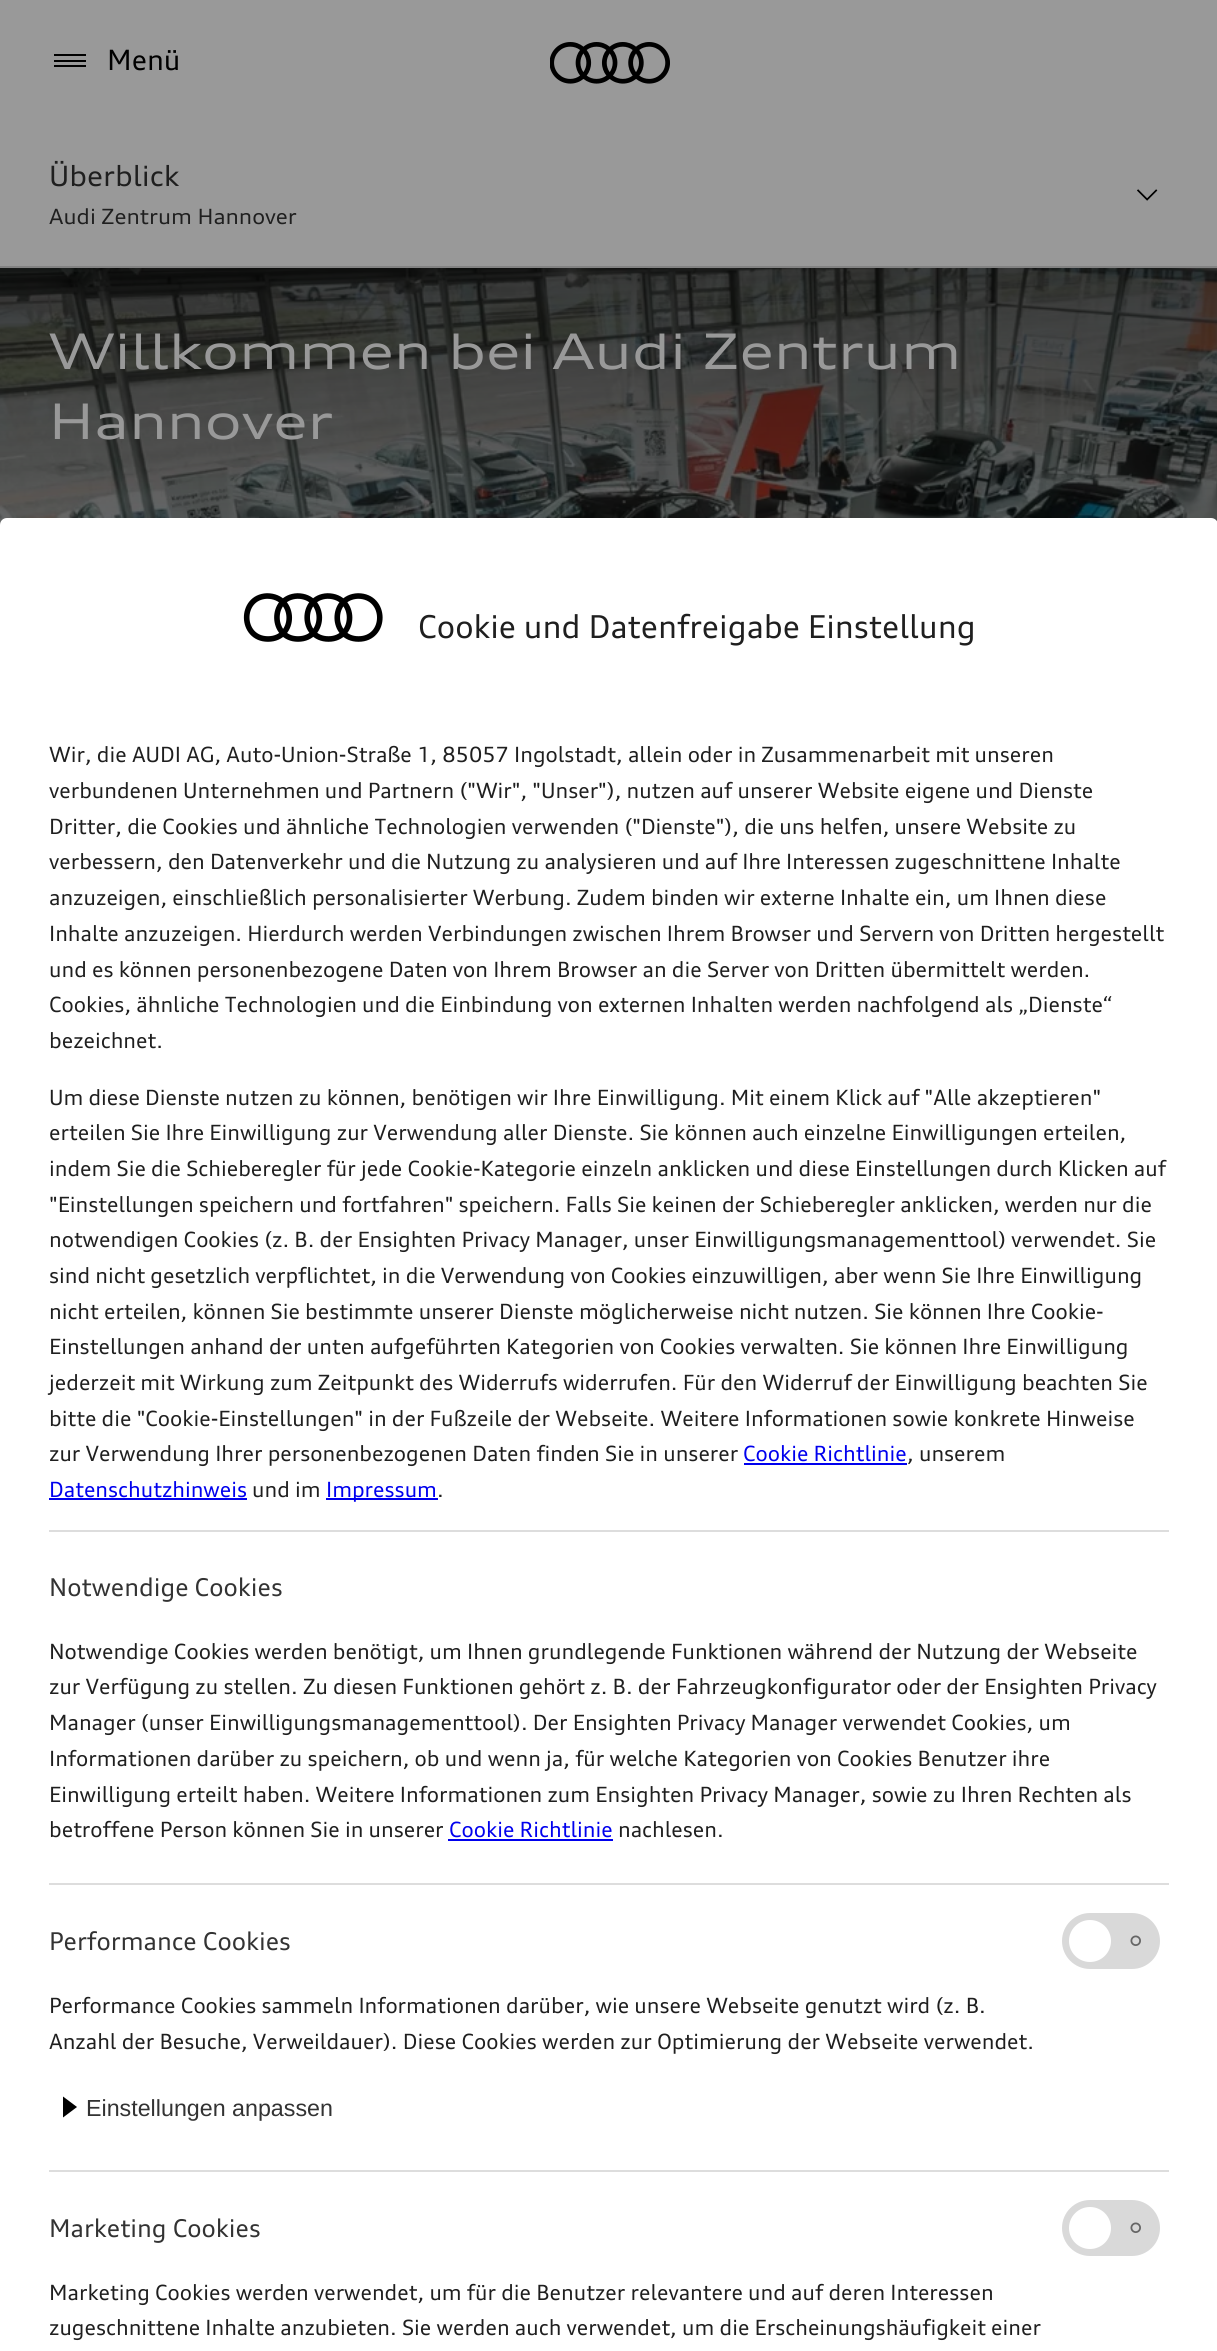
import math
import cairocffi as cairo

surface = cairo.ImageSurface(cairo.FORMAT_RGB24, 1217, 2351)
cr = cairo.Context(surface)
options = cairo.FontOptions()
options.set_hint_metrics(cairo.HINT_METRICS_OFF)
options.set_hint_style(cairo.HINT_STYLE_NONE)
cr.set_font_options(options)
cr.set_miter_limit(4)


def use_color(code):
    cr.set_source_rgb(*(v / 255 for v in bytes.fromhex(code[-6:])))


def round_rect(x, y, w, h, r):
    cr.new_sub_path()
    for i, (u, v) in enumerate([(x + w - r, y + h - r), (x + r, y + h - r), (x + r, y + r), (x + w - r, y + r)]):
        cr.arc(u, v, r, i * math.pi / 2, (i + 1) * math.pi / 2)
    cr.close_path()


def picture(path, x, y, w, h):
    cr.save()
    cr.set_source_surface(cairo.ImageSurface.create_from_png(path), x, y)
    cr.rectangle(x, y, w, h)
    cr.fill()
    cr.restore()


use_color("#999999")
cr.paint()
use_color("#000000")
cr.rectangle(54, 54, 32, 2)
cr.fill()
cr.rectangle(54, 60, 32, 2)
cr.fill()
cr.rectangle(54, 65, 32, 2)
cr.fill()
cr.select_font_face("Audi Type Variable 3")
cr.set_font_size(28)
cr.move_to(107, 70)
cr.show_text("Menü")
picture("img1.png", 550, 42, 120, 42)
use_color("#828282")
cr.rectangle(0, 266, 1217, 2)
cr.fill()
cr.select_font_face("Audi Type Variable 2")
use_color("#1f1f1f")
cr.move_to(49, 186)
cr.show_text("Überblick")
cr.set_font_size(21)
cr.move_to(49, 224)
cr.show_text("Audi Zentrum Hannover")
picture("img2.png", 1137, 189, 21, 12)
picture("img3.png", 0, 268, 1217, 257)
gradient = cairo.LinearGradient(609, 268, 609, 1388)
gradient.add_color_stop_rgba(0, 0, 0, 0, 0.6)
gradient.add_color_stop_rgba(0.5, 0, 0, 0, 0)
cr.set_source(gradient)
cr.rectangle(0, 268, 1217, 257)
cr.fill()
cr.select_font_face("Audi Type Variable")
cr.set_font_size(49)
use_color("#999999")
cr.move_to(49, 369)
cr.show_text("Willkommen bei Audi Zentrum")
cr.move_to(49, 439)
cr.show_text("Hannover")
use_color("#ffffff")
cr.new_path()
cr.move_to(7, 518)
cr.line_to(1211, 518)
cr.curve_to(1215, 518, 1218, 521, 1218, 525)
cr.line_to(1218, 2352)
cr.line_to(0, 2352)
cr.line_to(0, 525)
cr.curve_to(0, 521, 3, 518, 7, 518)
cr.close_path()
cr.fill()
cr.new_path()
cr.move_to(267, 596)
cr.curve_to(239.5, 597, 240, 639, 268, 639)
cr.curve_to(296.5, 639, 296.5, 596, 267, 596)
cr.close_path()
cr.move_to(297.5, 596)
cr.curve_to(269.5, 597, 270.5, 639, 298, 639)
cr.curve_to(326.5, 639, 326.5, 596, 297.5, 596)
cr.close_path()
cr.move_to(327.5, 596)
cr.curve_to(300, 597, 300.5, 639, 328.5, 639)
cr.curve_to(356.5, 639, 357, 596, 327.5, 596)
cr.close_path()
cr.move_to(358, 596)
cr.curve_to(330, 597, 330.5, 639, 358.5, 639)
cr.curve_to(387, 639, 387, 596, 358, 596)
cr.close_path()
use_color("#000000")
cr.set_line_width(5.6)
cr.stroke()
cr.select_font_face("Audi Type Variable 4")
cr.set_font_size(31.5)
use_color("#1f1f1f")
cr.move_to(418, 638)
cr.show_text("Cookie und Datenfreigabe Einstellung")
cr.set_font_size(21)
cr.move_to(49, 762)
cr.show_text("Wir, die AUDI AG, Auto-Union-Straße 1, 85057 Ingolstadt, allein oder in Zusammenarbeit mit unseren")
cr.move_to(49, 798)
cr.show_text("verbundenen Unternehmen und Partnern (\"Wir\", \"Unser\"), nutzen auf unserer Website eigene und Dienste")
cr.move_to(49, 834)
cr.show_text("Dritter, die Cookies und ähnliche Technologien verwenden (\"Dienste\"), die uns helfen, unsere Website zu")
cr.move_to(49, 869)
cr.show_text("verbessern, den Datenverkehr und die Nutzung zu analysieren und auf Ihre Interessen zugeschnittene Inhalte")
cr.move_to(49, 905)
cr.show_text("anzuzeigen, einschließlich personalisierter Werbung. Zudem binden wir externe Inhalte ein, um Ihnen diese")
cr.move_to(49, 941)
cr.show_text("Inhalte anzuzeigen. Hierdurch werden Verbindungen zwischen Ihrem Browser und Servern von Dritten hergestellt")
cr.move_to(49, 977)
cr.show_text("und es können personenbezogene Daten von Ihrem Browser an die Server von Dritten übermittelt werden.")
cr.move_to(49, 1012)
cr.show_text("Cookies, ähnliche Technologien und die Einbindung von externen Inhalten werden nachfolgend als „Dienste“")
cr.move_to(49, 1048)
cr.show_text("bezeichnet.")
cr.move_to(49, 1105)
cr.show_text("Um diese Dienste nutzen zu können, benötigen wir Ihre Einwilligung. Mit einem Klick auf \"Alle akzeptieren\"")
cr.move_to(49, 1140)
cr.show_text("erteilen Sie Ihre Einwilligung zur Verwendung aller Dienste. Sie können auch einzelne Einwilligungen erteilen,")
cr.move_to(49, 1176)
cr.show_text("indem Sie die Schieberegler für jede Cookie-Kategorie einzeln anklicken und diese Einstellungen durch Klicken auf")
cr.move_to(49, 1212)
cr.show_text("\"Einstellungen speichern und fortfahren\" speichern. Falls Sie keinen der Schieberegler anklicken, werden nur die")
cr.move_to(49, 1247)
cr.show_text("notwendigen Cookies (z. B. der Ensighten Privacy Manager, unser Einwilligungsmanagementtool) verwendet. Sie")
cr.move_to(49, 1283)
cr.show_text("sind nicht gesetzlich verpflichtet, in die Verwendung von Cookies einzuwilligen, aber wenn Sie Ihre Einwilligung")
cr.move_to(49, 1319)
cr.show_text("nicht erteilen, können Sie bestimmte unserer Dienste möglicherweise nicht nutzen. Sie können Ihre Cookie-")
cr.move_to(49, 1354)
cr.show_text("Einstellungen anhand der unten aufgeführten Kategorien von Cookies verwalten. Sie können Ihre Einwilligung")
cr.move_to(49, 1390)
cr.show_text("jederzeit mit Wirkung zum Zeitpunkt des Widerrufs widerrufen. Für den Widerruf der Einwilligung beachten Sie")
cr.move_to(49, 1426)
cr.show_text("bitte die \"Cookie-Einstellungen\" in der Fußzeile der Webseite. Weitere Informationen sowie konkrete Hinweise")
cr.move_to(49, 1461)
cr.show_text("zur Verwendung Ihrer personenbezogenen Daten finden Sie in unserer")
use_color("#0000ee")
cr.move_to(743, 1461)
cr.show_text("Cookie Richtlinie")
cr.rectangle(744, 1463, 163, 2)
cr.fill()
use_color("#1f1f1f")
cr.move_to(907, 1461)
cr.show_text(", unserem")
use_color("#0000ee")
cr.move_to(49, 1497)
cr.show_text("Datenschutzhinweis")
cr.rectangle(49, 1498, 198, 2)
cr.fill()
use_color("#1f1f1f")
cr.move_to(252, 1497)
cr.show_text("und im")
use_color("#0000ee")
cr.rectangle(326, 1498, 112, 2)
cr.fill()
cr.move_to(326, 1497)
cr.show_text("Impressum")
use_color("#1f1f1f")
cr.move_to(437, 1497)
cr.show_text(".")
use_color("#dddddd")
cr.rectangle(49, 1530, 1120, 2)
cr.fill()
cr.set_font_size(24.5)
use_color("#333333")
cr.move_to(49, 1596)
cr.show_text("Notwendige Cookies")
cr.set_font_size(21)
use_color("#1f1f1f")
cr.move_to(49, 1659)
cr.show_text("Notwendige Cookies werden benötigt, um Ihnen grundlegende Funktionen während der Nutzung der Webseite")
cr.move_to(49, 1694)
cr.show_text("zur Verfügung zu stellen. Zu diesen Funktionen gehört z. B. der Fahrzeugkonfigurator oder der Ensighten Privacy")
cr.move_to(49, 1730)
cr.show_text("Manager (unser Einwilligungsmanagementtool). Der Ensighten Privacy Manager verwendet Cookies, um")
cr.move_to(49, 1766)
cr.show_text("Informationen darüber zu speichern, ob und wenn ja, für welche Kategorien von Cookies Benutzer ihre")
cr.move_to(49, 1802)
cr.show_text("Einwilligung erteilt haben. Weitere Informationen zum Ensighten Privacy Manager, sowie zu Ihren Rechten als")
cr.move_to(49, 1837)
cr.show_text("betroffene Person können Sie in unserer")
use_color("#0000ee")
cr.move_to(449, 1837)
cr.show_text("Cookie Richtlinie")
cr.rectangle(448, 1839, 165, 2)
cr.fill()
use_color("#1f1f1f")
cr.move_to(618, 1837)
cr.show_text("nachlesen.")
use_color("#dddddd")
cr.rectangle(49, 1883, 1120, 2)
cr.fill()
cr.set_font_size(24.5)
use_color("#333333")
cr.move_to(49, 1950)
cr.show_text("Performance Cookies")
use_color("#d9d9d9")
round_rect(1062, 1913, 98, 56, 28)
cr.fill()
use_color("#ffffff")
cr.arc(1090, 1941, 21, 0, 2 * math.pi)
cr.fill()
picture("img4.png", 1130, 1935, 11, 11)
cr.set_font_size(21)
use_color("#1f1f1f")
cr.move_to(49, 2013)
cr.show_text("Performance Cookies sammeln Informationen darüber, wie unsere Webseite genutzt wird (z. B.")
cr.move_to(49, 2049)
cr.show_text("Anzahl der Besuche, Verweildauer). Diese Cookies werden zur Optimierung der Webseite verwendet.")
use_color("#000000")
cr.new_path()
cr.move_to(63, 2117.5)
cr.line_to(63, 2096.5)
cr.line_to(77, 2107)
cr.close_path()
cr.fill()
cr.select_font_face("Liberation Sans")
cr.set_font_size(23.25)
use_color("#333333")
cr.move_to(86, 2116)
cr.show_text("Einstellungen anpassen")
use_color("#dddddd")
cr.rectangle(49, 2170, 1120, 2)
cr.fill()
cr.select_font_face("Audi Type Variable 4")
cr.set_font_size(24.5)
use_color("#333333")
cr.move_to(49, 2237)
cr.show_text("Marketing Cookies")
use_color("#d9d9d9")
round_rect(1062, 2200, 98, 56, 28)
cr.fill()
use_color("#ffffff")
cr.arc(1090, 2228, 21, 0, 2 * math.pi)
cr.fill()
picture("img4.png", 1130, 2222, 11, 11)
cr.set_font_size(21)
use_color("#1f1f1f")
cr.move_to(49, 2300)
cr.show_text("Marketing Cookies werden verwendet, um für die Benutzer relevantere und auf deren Interessen")
cr.move_to(49, 2335)
cr.show_text("zugeschnittene Inhalte anzubieten. Sie werden auch verwendet, um die Erscheinungshäufigkeit einer")
surface.write_to_png("result.png")
